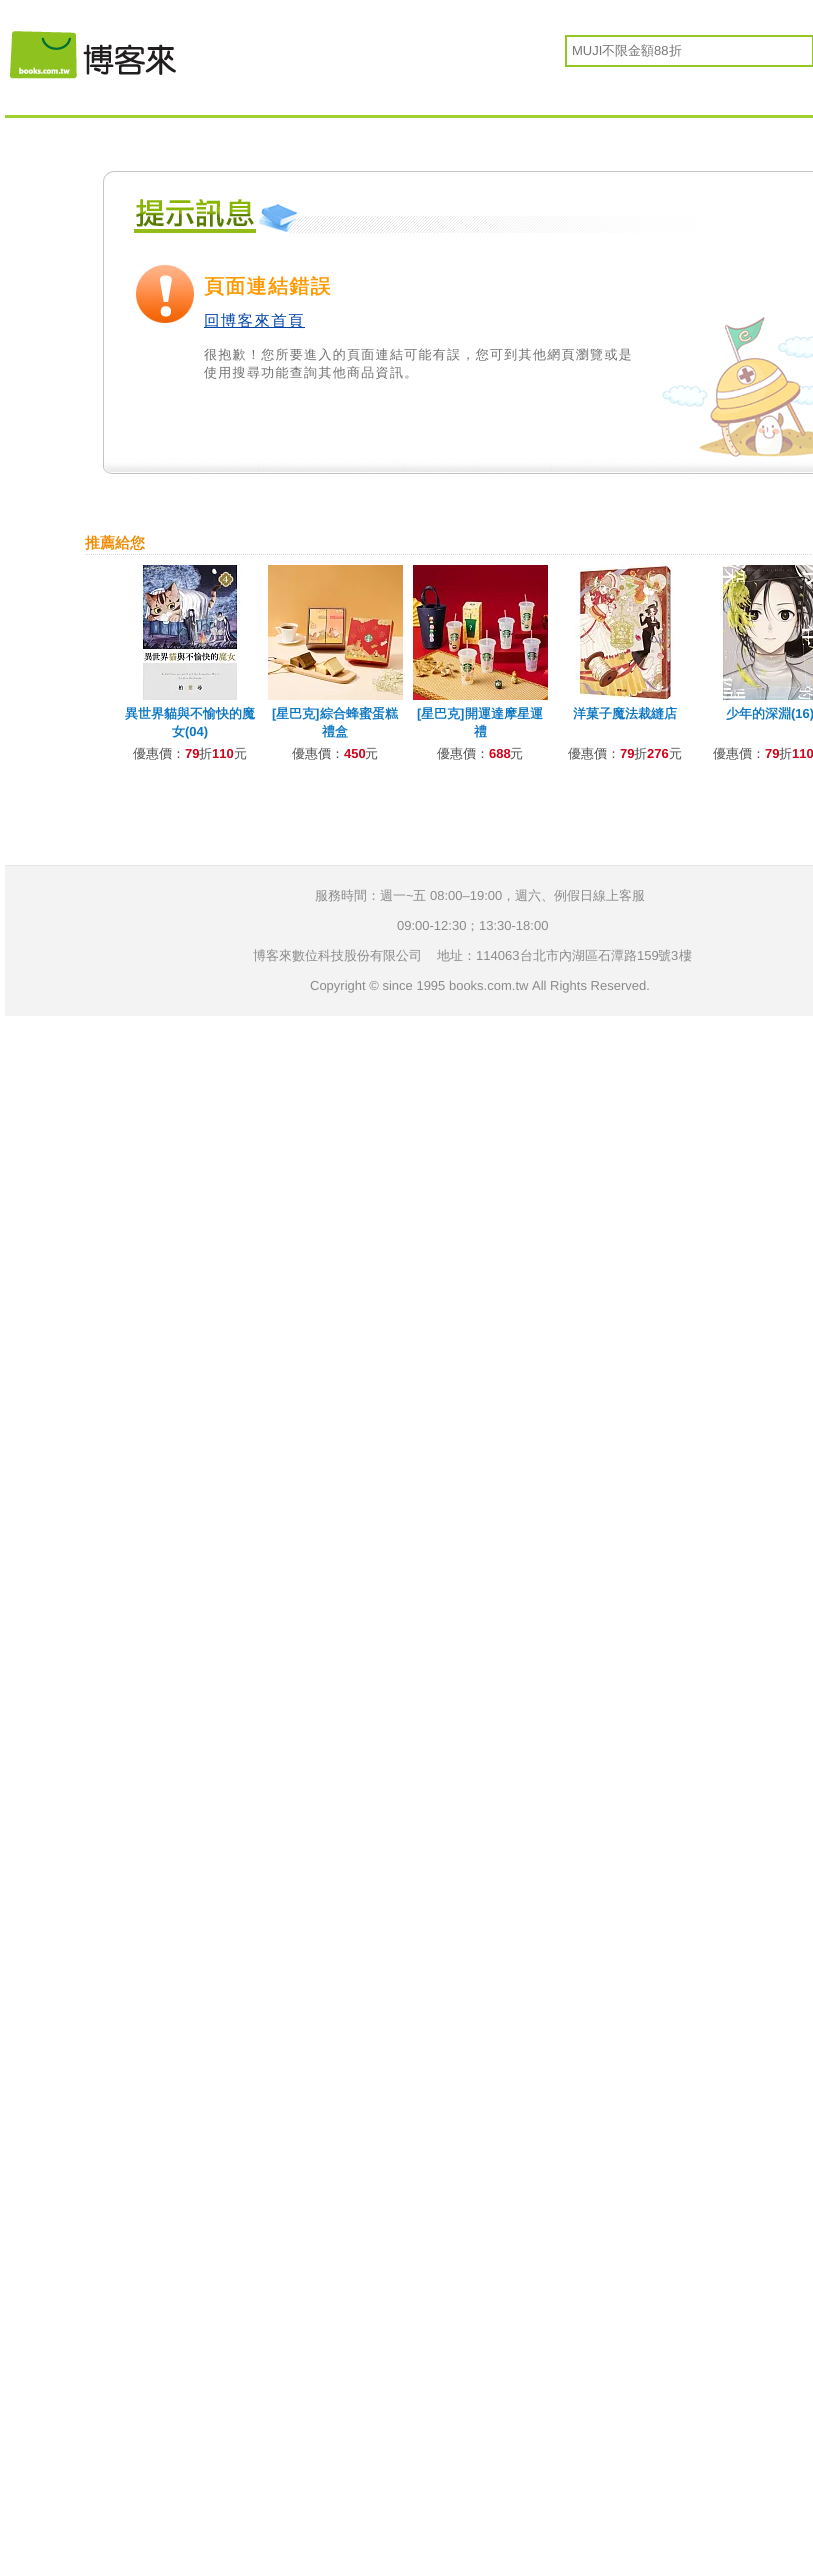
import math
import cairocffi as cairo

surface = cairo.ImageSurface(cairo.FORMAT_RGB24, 813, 2559)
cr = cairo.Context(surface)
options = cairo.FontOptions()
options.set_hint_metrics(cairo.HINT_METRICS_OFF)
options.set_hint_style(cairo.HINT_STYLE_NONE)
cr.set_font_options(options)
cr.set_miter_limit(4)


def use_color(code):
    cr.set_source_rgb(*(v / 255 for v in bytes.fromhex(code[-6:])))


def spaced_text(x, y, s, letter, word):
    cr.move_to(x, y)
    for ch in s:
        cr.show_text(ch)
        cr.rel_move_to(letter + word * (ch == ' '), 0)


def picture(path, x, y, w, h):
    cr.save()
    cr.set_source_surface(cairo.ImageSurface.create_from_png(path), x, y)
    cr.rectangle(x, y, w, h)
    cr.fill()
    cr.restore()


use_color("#ffffff")
cr.paint()
picture("img1.png", 10, 31, 166, 48)
use_color("#9fd22e")
cr.rectangle(5, 115, 808, 3)
cr.fill()
use_color("#94c722")
cr.rectangle(565, 35, 248, 32)
cr.fill()
use_color("#ffffff")
cr.rectangle(567, 37, 245, 28)
cr.fill()
cr.select_font_face("Liberation Sans")
cr.set_font_size(13)
use_color("#757575")
cr.move_to(572, 55)
cr.show_text("MUJI")
cr.select_font_face("WenQuanYi Zen Hei Medium")
cr.move_to(602, 55)
cr.show_text("不限金額")
cr.select_font_face("Liberation Sans")
cr.move_to(654, 55)
cr.show_text("88")
cr.select_font_face("WenQuanYi Zen Hei Medium")
cr.move_to(669, 55)
cr.show_text("折")
picture("img2.png", 103, 171, 710, 67)
use_color("#c6c3c3")
cr.rectangle(103, 238, 1, 220)
cr.fill()
picture("img3.png", 136, 265, 58, 58)
cr.select_font_face("WenQuanYi Zen Hei", cairo.FONT_SLANT_NORMAL, cairo.FONT_WEIGHT_BOLD)
cr.set_font_size(20)
use_color("#ff9900")
spaced_text(204, 293, "頁面連結錯誤", 1.3, 0)
use_color("#0044aa")
cr.rectangle(204, 327, 101, 1)
cr.fill()
cr.select_font_face("WenQuanYi Zen Hei Medium")
cr.set_font_size(15.5)
spaced_text(204, 326, "回博客來首頁", 1.3, 0)
cr.set_font_size(13)
use_color("#6e6e6e")
spaced_text(204, 359, "很抱歉！您所要進入的頁面連結可能有誤，您可到其他網頁瀏覽或是", 1.3, 0)
spaced_text(204, 377, "使用搜尋功能查詢其他商品資訊。", 1.3, 0)
picture("img4.png", 662, 317, 151, 140)
picture("img5.png", 103, 458, 710, 16)
cr.new_path()
cr.move_to(85, 554.5)
cr.line_to(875, 554.5)
use_color("#d8d8d8")
cr.set_line_width(1)
cr.set_dash([1, 1])
cr.stroke()
cr.select_font_face("WenQuanYi Zen Hei", cairo.FONT_SLANT_NORMAL, cairo.FONT_WEIGHT_BOLD)
cr.set_font_size(15)
use_color("#f28900")
cr.move_to(85, 548)
cr.show_text("推薦給您")
picture("img6.png", 139, 565, 103, 135)
cr.set_font_size(13)
use_color("#0b76c2")
cr.move_to(125, 718)
cr.show_text("異世界貓與不愉快的魔")
cr.move_to(172, 736)
cr.show_text("女")
cr.select_font_face("Liberation Sans", cairo.FONT_SLANT_NORMAL, cairo.FONT_WEIGHT_BOLD)
cr.move_to(185, 736)
cr.show_text("(04)")
cr.select_font_face("WenQuanYi Zen Hei Medium")
use_color("#4c4c4c")
cr.move_to(133, 758)
cr.show_text("優惠價：")
cr.select_font_face("Liberation Sans", cairo.FONT_SLANT_NORMAL, cairo.FONT_WEIGHT_BOLD)
use_color("#d0021b")
cr.move_to(185, 758)
cr.show_text("79")
cr.select_font_face("WenQuanYi Zen Hei Medium")
use_color("#4c4c4c")
cr.move_to(199, 758)
cr.show_text("折")
cr.select_font_face("Liberation Sans", cairo.FONT_SLANT_NORMAL, cairo.FONT_WEIGHT_BOLD)
use_color("#d0021b")
cr.move_to(212, 758)
cr.show_text("110")
cr.select_font_face("WenQuanYi Zen Hei Medium")
use_color("#4c4c4c")
cr.move_to(234, 758)
cr.show_text("元")
picture("img7.png", 268, 565, 135, 135)
cr.select_font_face("Liberation Sans", cairo.FONT_SLANT_NORMAL, cairo.FONT_WEIGHT_BOLD)
use_color("#0b76c2")
cr.move_to(272, 718)
cr.show_text("[")
cr.select_font_face("WenQuanYi Zen Hei", cairo.FONT_SLANT_NORMAL, cairo.FONT_WEIGHT_BOLD)
cr.move_to(276, 718)
cr.show_text("星巴克")
cr.select_font_face("Liberation Sans", cairo.FONT_SLANT_NORMAL, cairo.FONT_WEIGHT_BOLD)
cr.move_to(315, 718)
cr.show_text("]")
cr.select_font_face("WenQuanYi Zen Hei", cairo.FONT_SLANT_NORMAL, cairo.FONT_WEIGHT_BOLD)
cr.move_to(320, 718)
cr.show_text("綜合蜂蜜蛋糕")
cr.move_to(322, 736)
cr.show_text("禮盒")
cr.select_font_face("WenQuanYi Zen Hei Medium")
use_color("#4c4c4c")
cr.move_to(292, 758)
cr.show_text("優惠價：")
cr.select_font_face("Liberation Sans", cairo.FONT_SLANT_NORMAL, cairo.FONT_WEIGHT_BOLD)
use_color("#d0021b")
cr.move_to(344, 758)
cr.show_text("450")
cr.select_font_face("WenQuanYi Zen Hei Medium")
use_color("#4c4c4c")
cr.move_to(365, 758)
cr.show_text("元")
picture("img8.png", 413, 565, 135, 135)
cr.select_font_face("Liberation Sans", cairo.FONT_SLANT_NORMAL, cairo.FONT_WEIGHT_BOLD)
use_color("#0b76c2")
cr.move_to(417, 718)
cr.show_text("[")
cr.select_font_face("WenQuanYi Zen Hei", cairo.FONT_SLANT_NORMAL, cairo.FONT_WEIGHT_BOLD)
cr.move_to(421, 718)
cr.show_text("星巴克")
cr.select_font_face("Liberation Sans", cairo.FONT_SLANT_NORMAL, cairo.FONT_WEIGHT_BOLD)
cr.move_to(460, 718)
cr.show_text("]")
cr.select_font_face("WenQuanYi Zen Hei", cairo.FONT_SLANT_NORMAL, cairo.FONT_WEIGHT_BOLD)
cr.move_to(465, 718)
cr.show_text("開運達摩星運")
cr.move_to(474, 736)
cr.show_text("禮")
cr.select_font_face("WenQuanYi Zen Hei Medium")
use_color("#4c4c4c")
cr.move_to(437, 758)
cr.show_text("優惠價：")
cr.select_font_face("Liberation Sans", cairo.FONT_SLANT_NORMAL, cairo.FONT_WEIGHT_BOLD)
use_color("#d0021b")
cr.move_to(489, 758)
cr.show_text("688")
cr.select_font_face("WenQuanYi Zen Hei Medium")
use_color("#4c4c4c")
cr.move_to(510, 758)
cr.show_text("元")
picture("img9.png", 574, 565, 100, 135)
cr.select_font_face("WenQuanYi Zen Hei", cairo.FONT_SLANT_NORMAL, cairo.FONT_WEIGHT_BOLD)
use_color("#0b76c2")
cr.move_to(573, 718)
cr.show_text("洋菓子魔法裁縫店")
cr.select_font_face("WenQuanYi Zen Hei Medium")
use_color("#4c4c4c")
cr.move_to(568, 758)
cr.show_text("優惠價：")
cr.select_font_face("Liberation Sans", cairo.FONT_SLANT_NORMAL, cairo.FONT_WEIGHT_BOLD)
use_color("#d0021b")
cr.move_to(620, 758)
cr.show_text("79")
cr.select_font_face("WenQuanYi Zen Hei Medium")
use_color("#4c4c4c")
cr.move_to(634, 758)
cr.show_text("折")
cr.select_font_face("Liberation Sans", cairo.FONT_SLANT_NORMAL, cairo.FONT_WEIGHT_BOLD)
use_color("#d0021b")
cr.move_to(647, 758)
cr.show_text("276")
cr.select_font_face("WenQuanYi Zen Hei Medium")
use_color("#4c4c4c")
cr.move_to(669, 758)
cr.show_text("元")
picture("img10.png", 719, 565, 94, 135)
cr.select_font_face("WenQuanYi Zen Hei", cairo.FONT_SLANT_NORMAL, cairo.FONT_WEIGHT_BOLD)
use_color("#0b76c2")
cr.move_to(726, 718)
cr.show_text("少年的深淵")
cr.select_font_face("Liberation Sans", cairo.FONT_SLANT_NORMAL, cairo.FONT_WEIGHT_BOLD)
cr.move_to(791, 718)
cr.show_text("(16)")
cr.select_font_face("WenQuanYi Zen Hei Medium")
use_color("#4c4c4c")
cr.move_to(713, 758)
cr.show_text("優惠價：")
cr.select_font_face("Liberation Sans", cairo.FONT_SLANT_NORMAL, cairo.FONT_WEIGHT_BOLD)
use_color("#d0021b")
cr.move_to(765, 758)
cr.show_text("79")
cr.select_font_face("WenQuanYi Zen Hei Medium")
use_color("#4c4c4c")
cr.move_to(779, 758)
cr.show_text("折")
cr.select_font_face("Liberation Sans", cairo.FONT_SLANT_NORMAL, cairo.FONT_WEIGHT_BOLD)
use_color("#d0021b")
cr.move_to(792, 758)
cr.show_text("110")
use_color("#f3f3f3")
cr.rectangle(5, 866, 808, 150)
cr.fill()
use_color("#e6e4e4")
cr.rectangle(5, 865, 808, 1)
cr.fill()
cr.select_font_face("WenQuanYi Zen Hei Medium")
use_color("#8b8a8a")
cr.move_to(315, 900)
cr.show_text("服務時間：週一")
cr.select_font_face("Liberation Sans")
cr.move_to(406, 900)
cr.show_text("~")
cr.select_font_face("WenQuanYi Zen Hei Medium")
cr.move_to(413, 900)
cr.show_text("五")
cr.select_font_face("Liberation Sans")
cr.move_to(430, 900)
cr.show_text("08:00–19:00")
cr.select_font_face("WenQuanYi Zen Hei Medium")
cr.move_to(502, 900)
cr.show_text("，週六、例假日線上客服")
cr.select_font_face("Liberation Sans")
cr.move_to(397, 930)
cr.show_text("09:00-12:30")
cr.select_font_face("WenQuanYi Zen Hei Medium")
cr.move_to(466, 930)
cr.show_text("；")
cr.select_font_face("Liberation Sans")
cr.move_to(479, 930)
cr.show_text("13:30-18:00")
cr.select_font_face("WenQuanYi Zen Hei Medium")
cr.move_to(253, 960)
cr.show_text("博客來數位科技股份有限公司")
cr.move_to(437, 960)
cr.show_text("地址：")
cr.select_font_face("Liberation Sans")
cr.move_to(476, 960)
cr.show_text("114063")
cr.select_font_face("WenQuanYi Zen Hei Medium")
cr.move_to(520, 960)
cr.show_text("台北市內湖區石潭路")
cr.select_font_face("Liberation Sans")
cr.move_to(637, 960)
cr.show_text("159")
cr.select_font_face("WenQuanYi Zen Hei Medium")
cr.move_to(658, 960)
cr.show_text("號")
cr.select_font_face("Liberation Sans")
cr.move_to(671, 960)
cr.show_text("3")
cr.select_font_face("WenQuanYi Zen Hei Medium")
cr.move_to(679, 960)
cr.show_text("樓")
cr.select_font_face("Liberation Sans")
cr.move_to(310, 990)
cr.show_text("Copyright © since 1995 books.com.tw All Rights Reserved.")
surface.write_to_png("result.png")
